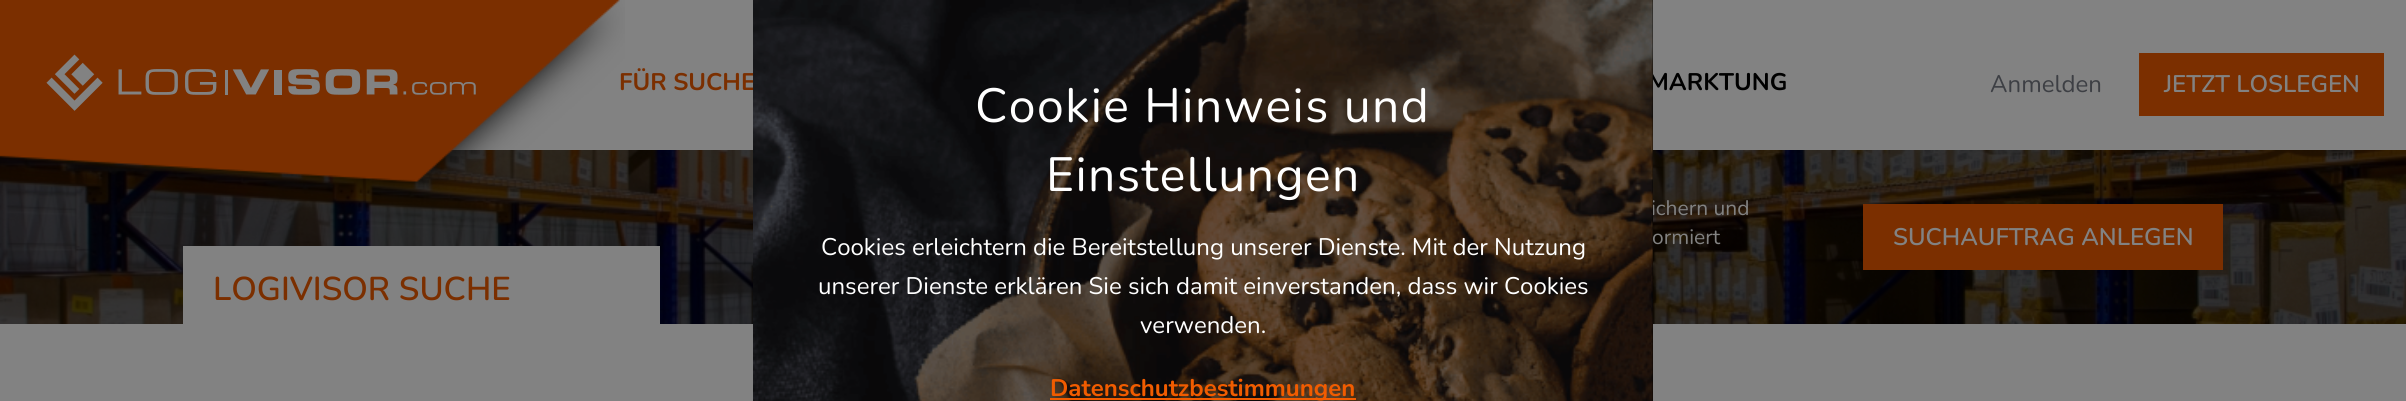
import math
import cairocffi as cairo

surface = cairo.ImageSurface(cairo.FORMAT_RGB24, 2406, 401)
cr = cairo.Context(surface)
options = cairo.FontOptions()
options.set_hint_metrics(cairo.HINT_METRICS_OFF)
options.set_hint_style(cairo.HINT_STYLE_NONE)
cr.set_font_options(options)
cr.set_miter_limit(4)


def use_color(code):
    cr.set_source_rgb(*(v / 255 for v in bytes.fromhex(code[-6:])))


def spaced_text(x, y, s, letter, word):
    cr.move_to(x, y)
    for ch in s:
        cr.show_text(ch)
        cr.rel_move_to(letter + word * (ch == ' '), 0)


def picture(path, x, y, w, h):
    cr.save()
    cr.set_source_surface(cairo.ImageSurface.create_from_png(path), x, y)
    cr.rectangle(x, y, w, h)
    cr.fill()
    cr.restore()


use_color("#828282")
cr.paint()
picture("img4.png", 0, 150, 2406, 174)
picture("img1.png", 0, 0, 625, 202)
picture("img2.png", 46, 54, 430, 57)
cr.select_font_face("Nunito", cairo.FONT_SLANT_NORMAL, cairo.FONT_WEIGHT_BOLD)
cr.set_font_size(24)
use_color("#7b2f00")
cr.move_to(619, 90)
cr.show_text("FÜR SUCHE")
use_color("#000000")
cr.move_to(1648, 90)
cr.show_text("MARKTUNG")
cr.select_font_face("Nunito")
use_color("#3d3f44")
cr.move_to(1990, 92)
cr.show_text("Anmelden")
use_color("#7b2f00")
cr.rectangle(2139, 53, 245, 63)
cr.fill()
cr.select_font_face("Nunito SemiBold")
use_color("#828282")
cr.move_to(2164, 92)
cr.show_text("JETZT LOSLEGEN")
cr.select_font_face("Nunito")
cr.set_font_size(21)
cr.move_to(1651, 215)
cr.show_text("ichern und")
use_color("#000000")
cr.rectangle(753, 0, 900, 401)
cr.fill()
picture("img3.png", 753, 0, 900, 401)
cr.set_font_size(48)
use_color("#ffffff")
spaced_text(975, 122, "Cookie Hinweis und", 1.5, 0)
spaced_text(1046, 191, "Einstellungen", 1.5, 0)
cr.set_font_size(24)
cr.move_to(821, 255)
cr.show_text("Cookies erleichtern die Bereitstellung unserer Dienste. Mit der Nutzung")
cr.move_to(818, 294)
cr.show_text("unserer Dienste erklären Sie sich damit einverstanden, dass wir Cookies")
cr.move_to(1140, 333)
cr.show_text("verwenden.")
use_color("#f15c00")
cr.rectangle(1050, 398, 306, 2)
cr.fill()
cr.select_font_face("Nunito", cairo.FONT_SLANT_NORMAL, cairo.FONT_WEIGHT_BOLD)
cr.move_to(1050, 396)
cr.show_text("Datenschutzbestimmungen")
cr.select_font_face("Nunito")
cr.set_font_size(21)
use_color("#828282")
cr.move_to(1652, 244)
cr.show_text("ormiert")
use_color("#7b2f00")
cr.rectangle(1863, 204, 360, 66)
cr.fill()
cr.select_font_face("Nunito SemiBold")
cr.set_font_size(24)
use_color("#828282")
cr.move_to(1893, 245)
cr.show_text("SUCHAUFTRAG ANLEGEN")
cr.rectangle(183, 246, 477, 78)
cr.fill()
cr.set_font_size(33)
use_color("#7b2f00")
cr.move_to(213, 300)
cr.show_text("LOGIVISOR SUCHE")
surface.write_to_png("result.png")
